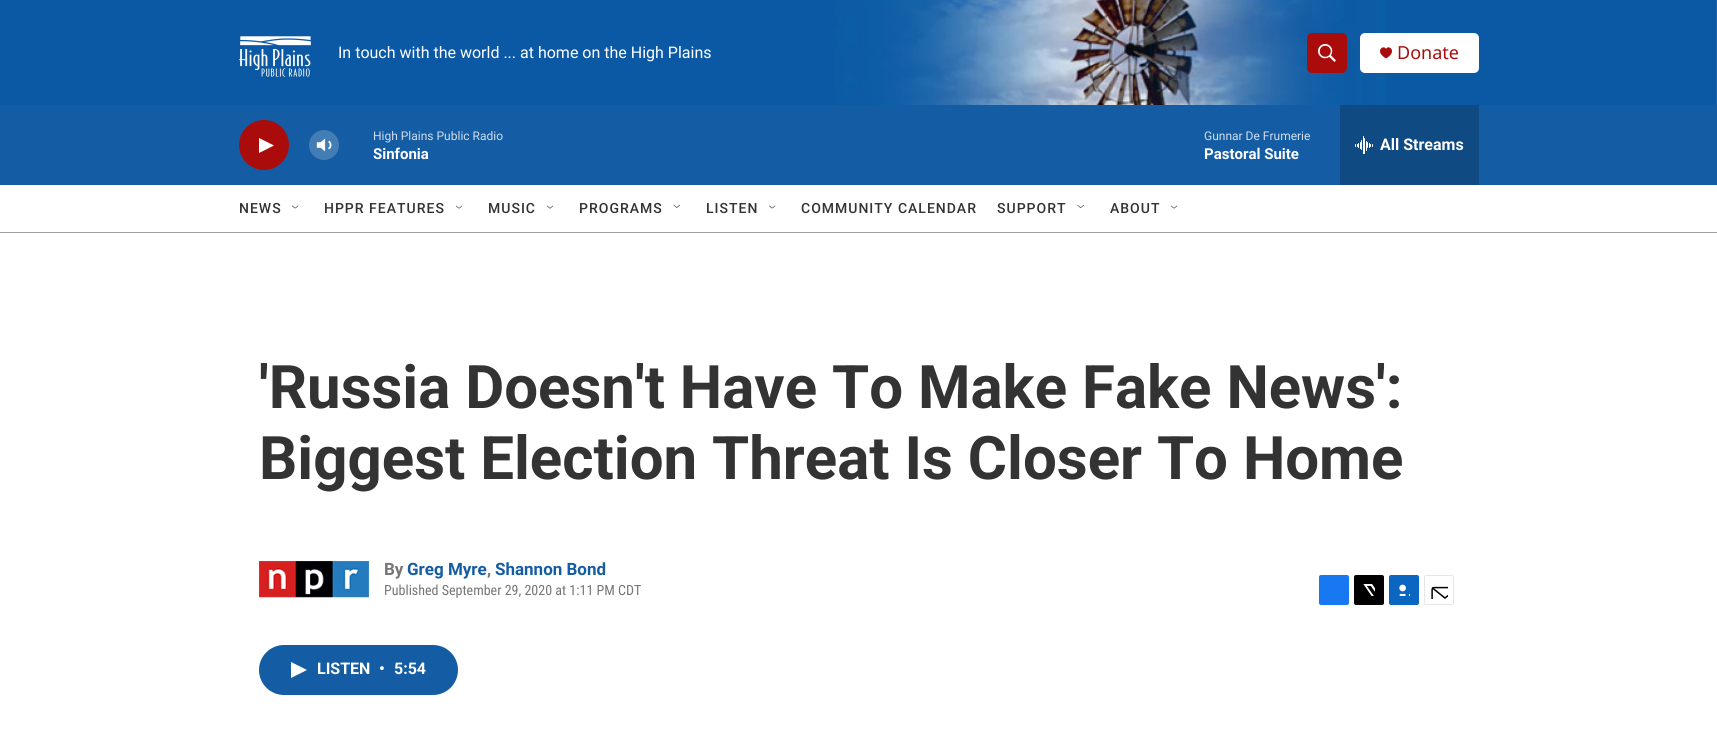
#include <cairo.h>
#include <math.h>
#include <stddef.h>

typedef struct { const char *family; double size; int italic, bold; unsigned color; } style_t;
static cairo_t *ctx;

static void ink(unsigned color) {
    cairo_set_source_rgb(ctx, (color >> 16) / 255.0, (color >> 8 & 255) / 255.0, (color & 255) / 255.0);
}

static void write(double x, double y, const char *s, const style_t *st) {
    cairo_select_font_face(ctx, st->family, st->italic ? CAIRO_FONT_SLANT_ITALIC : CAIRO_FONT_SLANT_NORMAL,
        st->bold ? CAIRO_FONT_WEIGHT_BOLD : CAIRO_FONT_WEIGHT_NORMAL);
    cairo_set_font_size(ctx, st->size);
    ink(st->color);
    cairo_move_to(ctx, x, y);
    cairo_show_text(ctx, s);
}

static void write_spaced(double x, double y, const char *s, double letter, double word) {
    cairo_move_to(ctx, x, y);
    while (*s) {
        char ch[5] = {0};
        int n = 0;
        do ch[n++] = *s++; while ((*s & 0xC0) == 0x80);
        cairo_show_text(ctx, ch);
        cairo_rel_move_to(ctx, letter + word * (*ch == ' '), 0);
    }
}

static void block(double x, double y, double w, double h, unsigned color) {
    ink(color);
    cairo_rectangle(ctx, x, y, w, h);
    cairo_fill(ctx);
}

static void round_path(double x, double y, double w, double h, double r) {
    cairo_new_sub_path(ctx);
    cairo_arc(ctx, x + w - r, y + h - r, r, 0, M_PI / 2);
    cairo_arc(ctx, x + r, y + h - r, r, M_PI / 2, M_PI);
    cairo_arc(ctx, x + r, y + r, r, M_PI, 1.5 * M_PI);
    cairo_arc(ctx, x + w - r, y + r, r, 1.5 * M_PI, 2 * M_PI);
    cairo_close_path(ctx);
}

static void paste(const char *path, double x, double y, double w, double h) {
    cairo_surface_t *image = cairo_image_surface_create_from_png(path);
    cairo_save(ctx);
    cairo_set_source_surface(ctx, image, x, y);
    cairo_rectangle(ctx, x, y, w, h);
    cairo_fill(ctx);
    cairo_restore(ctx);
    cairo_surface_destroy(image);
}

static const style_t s1 = {"Roboto", 16, 0, 0, 0xffffff};
static const style_t s2 = {"Noto Sans", 18, 0, 0, 0xaa0c0c};
static const style_t s3 = {"Roboto", 12, 0, 0, 0xd0deed};
static const style_t s4 = {"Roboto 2", 15, 0, 1, 0xffffff};
static const style_t s5 = {"Roboto 2", 16, 0, 1, 0xffffff};
static const style_t s6 = {"Roboto", 60, 0, 1, 0x333333};
static const style_t s7 = {"Roboto", 17, 0, 1, 0x767676};
static const style_t s8 = {"Roboto", 17, 0, 1, 0x145ca3};
static const style_t s9 = {"Roboto Condensed", 14, 0, 0, 0x767676};

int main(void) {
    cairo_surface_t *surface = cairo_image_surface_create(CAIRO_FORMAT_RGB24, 1717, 733);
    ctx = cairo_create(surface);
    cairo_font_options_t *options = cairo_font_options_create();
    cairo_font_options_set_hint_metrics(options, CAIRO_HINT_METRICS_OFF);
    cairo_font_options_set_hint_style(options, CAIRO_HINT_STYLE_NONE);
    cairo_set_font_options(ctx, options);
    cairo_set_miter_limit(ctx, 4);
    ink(0xffffff);
    cairo_paint(ctx);
    block(0, 232, 1717, 1, 0xa0a0a0);
    paste("pic1.png", 0, 0, 1717, 105);
    paste("pic2.png", 239, 32, 72, 45);
    write(338, 58, "In touch with the world ... at home on the High Plains", &s1);
    ink(0xaa0c0c);
    round_path(1307, 33, 40, 40, 5);
    cairo_fill(ctx);
    paste("pic3.png", 1318, 44, 18, 18);
    ink(0xffffff);
    round_path(1360, 33, 119, 40, 5);
    cairo_fill(ctx);
    ink(0xaa0c0c);
    cairo_new_path(ctx);
    cairo_move_to(ctx, 1386, 49);
    cairo_curve_to(ctx, 1384, 44, 1373.5, 51, 1386, 58.5);
    cairo_curve_to(ctx, 1398.5, 51, 1388, 44, 1386, 49);
    cairo_close_path(ctx);
    cairo_fill(ctx);
    write(1397, 59, "Donate", &s2);
    block(0, 105, 1717, 80, 0x145ca3);
    ink(0xaa0c0c);
    cairo_new_path(ctx);
    cairo_arc(ctx, 264, 145, 25, 0, 2 * M_PI);
    cairo_fill(ctx);
    ink(0xffffff);
    cairo_new_path(ctx);
    cairo_move_to(ctx, 259, 138);
    cairo_line_to(ctx, 274, 145.5);
    cairo_line_to(ctx, 259, 153);
    cairo_close_path(ctx);
    cairo_fill(ctx);
    paste("pic4.png", 316, 138, 16, 14);
    cairo_set_source_rgba(ctx, 1, 1, 1, 0.2);
    cairo_arc(ctx, 324, 145, 15, 0, 2 * M_PI);
    cairo_fill(ctx);
    write(373, 140, "High Plains Public Radio", &s3);
    write(373, 159, "Sinfonia", &s4);
    write(1204, 140, "Gunnar De Frumerie", &s3);
    write(1204, 159, "Pastoral Suite", &s4);
    block(1340, 105, 139, 80, 0x104a82);
    paste("pic5.png", 1355, 136, 18, 18);
    write(1380, 150, "All Streams", &s5);
    cairo_select_font_face(ctx, "Roboto Medium", CAIRO_FONT_SLANT_NORMAL, CAIRO_FONT_WEIGHT_NORMAL);
    cairo_set_font_size(ctx, 14);
    ink(0x333333);
    write_spaced(239, 213, "NEWS", 1, 0);
    paste("pic6.png", 292, 205, 7, 4);
    write_spaced(324, 213, "HPPR FEATURES", 1, 0);
    paste("pic7.png", 455, 205, 8, 4);
    write_spaced(488, 213, "MUSIC", 1, 0);
    paste("pic8.png", 546, 205, 8, 4);
    write_spaced(579, 213, "PROGRAMS", 1, 0);
    paste("pic9.png", 673, 204, 7, 4);
    write_spaced(706, 213, "LISTEN", 1, 0);
    paste("pic6.png", 769, 205, 7, 4);
    write_spaced(801, 213, "COMMUNITY CALENDAR", 1, 0);
    write_spaced(997, 213, "SUPPORT", 1, 0);
    paste("pic10.png", 1077, 205, 7, 3);
    write_spaced(1110, 213, "ABOUT", 1, 0);
    paste("pic11.png", 1170, 205, 8, 4);
    write(259, 408, "'Russia Doesn't Have To Make Fake News':", &s6);
    write(259, 479, "Biggest Election Threat Is Closer To Home", &s6);
    paste("pic12.png", 259, 561, 110, 37);
    write(384, 575, "By", &s7);
    write(407, 575, "Greg Myre", &s8);
    write(487, 575, ",", &s7);
    write(495, 575, "Shannon Bond", &s8);
    write(384, 595, "Published September 29, 2020 at 1:11 PM CDT", &s9);
    ink(0x1778f2);
    round_path(1319, 575, 30, 30, 2);
    cairo_fill(ctx);
    ink(0x000000);
    round_path(1354, 575, 30, 30, 2);
    cairo_fill(ctx);
    paste("pic13.png", 1363, 584, 12, 12);
    ink(0x0a66c1);
    round_path(1389, 575, 30, 30, 2);
    cairo_fill(ctx);
    paste("pic14.png", 1399, 584, 11, 12);
    round_path(1424.5, 575.5, 29, 29, 1.5);
    ink(0xe6e6e6);
    cairo_set_line_width(ctx, 1);
    cairo_stroke(ctx);
    paste("pic15.png", 1431, 586, 17, 13);
    ink(0x145ca3);
    round_path(259, 645, 199, 50, 25);
    cairo_fill(ctx);
    ink(0xffffff);
    cairo_new_path(ctx);
    cairo_move_to(ctx, 291, 662);
    cairo_line_to(ctx, 307, 670);
    cairo_line_to(ctx, 291, 678);
    cairo_close_path(ctx);
    cairo_fill(ctx);
    write(317, 674, "LISTEN", &s5);
    write(379, 674, "•", &s5);
    write(394, 674, "5:54", &s5);
    cairo_surface_write_to_png(surface, "screenshot.png");
    cairo_font_options_destroy(options);
    cairo_destroy(ctx);
    cairo_surface_destroy(surface);
    return 0;
}
